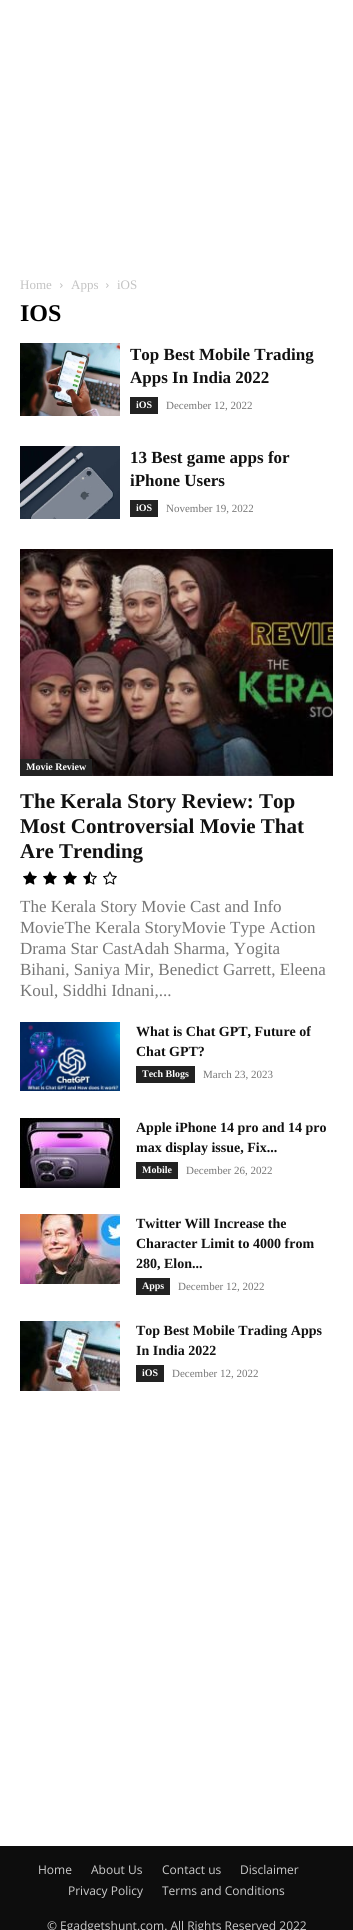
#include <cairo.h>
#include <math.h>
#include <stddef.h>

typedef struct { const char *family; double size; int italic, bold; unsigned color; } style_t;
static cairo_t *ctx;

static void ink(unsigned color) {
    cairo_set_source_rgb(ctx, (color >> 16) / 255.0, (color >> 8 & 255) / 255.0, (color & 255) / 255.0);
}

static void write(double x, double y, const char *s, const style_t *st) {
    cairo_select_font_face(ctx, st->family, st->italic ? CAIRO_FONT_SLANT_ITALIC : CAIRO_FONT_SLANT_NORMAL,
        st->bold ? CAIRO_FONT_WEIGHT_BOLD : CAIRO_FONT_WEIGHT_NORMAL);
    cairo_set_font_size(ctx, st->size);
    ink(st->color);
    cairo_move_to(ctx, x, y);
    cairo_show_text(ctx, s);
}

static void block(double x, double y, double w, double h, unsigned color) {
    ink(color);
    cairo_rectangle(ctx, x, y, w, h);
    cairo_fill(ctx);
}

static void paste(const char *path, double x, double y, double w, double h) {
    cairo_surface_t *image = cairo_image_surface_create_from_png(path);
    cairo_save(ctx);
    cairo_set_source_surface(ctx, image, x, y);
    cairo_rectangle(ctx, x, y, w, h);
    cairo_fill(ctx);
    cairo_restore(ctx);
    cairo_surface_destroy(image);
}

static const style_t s1 = {"Liberation Serif", 13, 0, 0, 0xc3c3c3};
static const style_t s2 = {"Liberation Serif", 24, 0, 1, 0x000000};
static const style_t s3 = {"Liberation Serif", 17, 0, 1, 0x111111};
static const style_t s4 = {"Liberation Serif", 10, 0, 1, 0xffffff};
static const style_t s5 = {"Liberation Serif", 11, 0, 0, 0x767676};
static const style_t s6 = {"Liberation Serif", 21, 0, 1, 0x111111};
static const style_t s7 = {"Liberation Serif", 17, 0, 0, 0x767676};
static const style_t s8 = {"Liberation Serif", 14, 0, 1, 0x111111};
static const style_t s9 = {"Open Sans", 12, 0, 0, 0xcccccc};

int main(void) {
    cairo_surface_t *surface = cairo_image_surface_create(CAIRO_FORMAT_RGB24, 353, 1930);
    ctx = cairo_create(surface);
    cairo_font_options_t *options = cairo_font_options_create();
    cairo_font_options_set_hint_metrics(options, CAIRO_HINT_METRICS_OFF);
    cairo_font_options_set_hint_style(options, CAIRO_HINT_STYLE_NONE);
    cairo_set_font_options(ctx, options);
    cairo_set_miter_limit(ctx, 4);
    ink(0xffffff);
    cairo_paint(ctx);
    write(20, 289, "Home", &s1);
    paste("pic1.png", 60, 283, 3, 5);
    write(71, 289, "Apps", &s1);
    paste("pic1.png", 106, 283, 3, 5);
    write(117, 289, "iOS", &s1);
    write(20, 321, "IOS", &s2);
    paste("pic2.png", 20, 343, 100, 73);
    write(130, 360, "Top Best Mobile Trading", &s3);
    write(130, 383, "Apps In India 2022", &s3);
    block(130, 397, 28, 17, 0x222222);
    write(136, 408, "iOS", &s4);
    write(166, 409, "December 12, 2022", &s5);
    paste("pic3.png", 20, 446, 100, 73);
    write(130, 463, "13 Best game apps for", &s3);
    write(130, 486, "iPhone Users", &s3);
    block(130, 500, 28, 17, 0x222222);
    write(136, 511, "iOS", &s4);
    write(166, 512, "November 19, 2022", &s5);
    paste("pic4.png", 20, 549, 313, 227);
    block(20, 759, 72, 17, 0x222222);
    write(26, 770, "Movie Review", &s4);
    write(20, 808, "The Kerala Story Review: Top", &s6);
    write(20, 833, "Most Controversial Movie That", &s6);
    write(20, 858, "Are Trending", &s6);
    paste("pic5.png", 23, 871, 14, 14);
    paste("pic5.png", 43, 871, 14, 14);
    paste("pic5.png", 63, 871, 14, 14);
    paste("pic6.png", 83, 871, 14, 14);
    paste("pic7.png", 103, 871, 14, 14);
    write(20, 912, "The Kerala Story Movie Cast and Info", &s7);
    write(20, 933, "MovieThe Kerala StoryMovie Type Action", &s7);
    write(20, 954, "Drama Star CastAdah Sharma, Yogita", &s7);
    write(20, 975, "Bihani, Saniya Mir, Benedict Garrett, Eleena", &s7);
    write(20, 996, "Koul, Siddhi Idnani,...", &s7);
    paste("pic8.png", 20, 1022, 100, 69);
    write(136, 1036, "What is Chat GPT, Future of", &s8);
    write(136, 1056, "Chat GPT?", &s8);
    block(136, 1066, 59, 17, 0x222222);
    write(142, 1077, "Tech Blogs", &s4);
    write(203, 1078, "March 23, 2023", &s5);
    paste("pic9.png", 20, 1118, 100, 70);
    write(136, 1132, "Apple iPhone 14 pro and 14 pro", &s8);
    write(136, 1152, "max display issue, Fix...", &s8);
    block(136, 1162, 42, 17, 0x222222);
    write(142, 1173, "Mobile", &s4);
    write(186, 1174, "December 26, 2022", &s5);
    paste("pic10.png", 20, 1214, 100, 70);
    write(136, 1228, "Twitter Will Increase the", &s8);
    write(136, 1248, "Character Limit to 4000 from", &s8);
    write(136, 1268, "280, Elon...", &s8);
    block(136, 1278, 34, 17, 0x222222);
    write(142, 1289, "Apps", &s4);
    write(178, 1290, "December 12, 2022", &s5);
    paste("pic11.png", 20, 1321, 100, 70);
    write(136, 1335, "Top Best Mobile Trading Apps", &s8);
    write(136, 1355, "In India 2022", &s8);
    block(136, 1365, 28, 17, 0x222222);
    write(142, 1376, "iOS", &s4);
    write(172, 1377, "December 12, 2022", &s5);
    block(0, 1846, 353, 84, 0x0d0d0d);
    write(38, 1874, "Home", &s9);
    write(91, 1874, "About Us", &s9);
    write(162, 1874, "Contact us", &s9);
    write(240, 1874, "Disclaimer", &s9);
    write(68, 1895, "Privacy Policy", &s9);
    write(162, 1895, "Terms and Conditions", &s9);
    write(47, 1930, "© Egadgetshunt.com. All Rights Reserved 2022", &s9);
    cairo_surface_write_to_png(surface, "screenshot.png");
    cairo_font_options_destroy(options);
    cairo_destroy(ctx);
    cairo_surface_destroy(surface);
    return 0;
}
